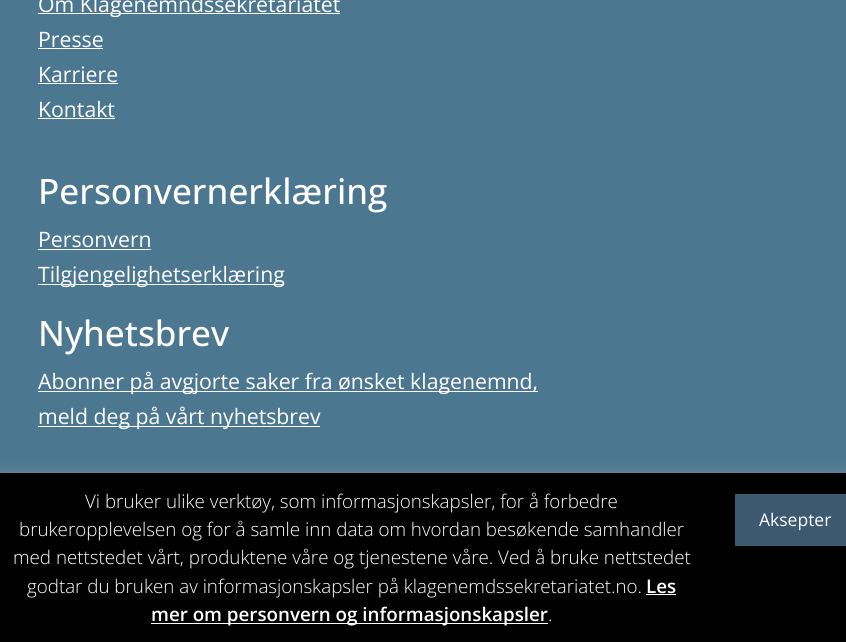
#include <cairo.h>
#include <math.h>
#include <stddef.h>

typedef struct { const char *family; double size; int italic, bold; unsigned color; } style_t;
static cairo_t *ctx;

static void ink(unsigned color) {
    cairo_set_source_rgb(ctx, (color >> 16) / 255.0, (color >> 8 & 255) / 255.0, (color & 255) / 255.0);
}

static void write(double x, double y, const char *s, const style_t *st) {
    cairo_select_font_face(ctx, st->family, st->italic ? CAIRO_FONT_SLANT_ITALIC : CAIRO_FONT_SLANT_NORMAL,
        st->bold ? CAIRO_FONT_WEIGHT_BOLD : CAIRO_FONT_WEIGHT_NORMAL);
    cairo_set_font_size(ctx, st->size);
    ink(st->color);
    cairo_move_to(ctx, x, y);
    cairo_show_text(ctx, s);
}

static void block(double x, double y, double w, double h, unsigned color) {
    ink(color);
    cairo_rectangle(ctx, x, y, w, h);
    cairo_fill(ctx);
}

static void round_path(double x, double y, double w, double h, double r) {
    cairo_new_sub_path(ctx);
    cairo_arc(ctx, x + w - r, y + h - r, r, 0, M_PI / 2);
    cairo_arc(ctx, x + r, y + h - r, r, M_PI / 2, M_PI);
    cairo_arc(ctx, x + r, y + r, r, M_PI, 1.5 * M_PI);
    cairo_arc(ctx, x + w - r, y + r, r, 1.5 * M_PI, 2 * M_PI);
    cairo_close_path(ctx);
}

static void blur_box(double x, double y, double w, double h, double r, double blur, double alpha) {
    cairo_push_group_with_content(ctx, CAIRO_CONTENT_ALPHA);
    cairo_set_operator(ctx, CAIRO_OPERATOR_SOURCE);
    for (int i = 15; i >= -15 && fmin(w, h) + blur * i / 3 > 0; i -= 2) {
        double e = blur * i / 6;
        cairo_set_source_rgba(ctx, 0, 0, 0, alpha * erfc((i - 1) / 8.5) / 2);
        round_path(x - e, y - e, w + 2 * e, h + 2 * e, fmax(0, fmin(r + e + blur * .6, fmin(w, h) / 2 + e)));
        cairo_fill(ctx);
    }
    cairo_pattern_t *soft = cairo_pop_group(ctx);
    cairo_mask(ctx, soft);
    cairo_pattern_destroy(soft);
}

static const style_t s1 = {"Open Sans", 21.25, 0, 0, 0xffffff};
static const style_t s2 = {"Open Sans Medium", 35, 0, 0, 0xffffff};
static const style_t s3 = {"Open Sans Light", 18.75, 0, 0, 0xffffff};
static const style_t s4 = {"Open Sans SemiBold", 18.75, 0, 0, 0xffffff};
static const style_t s5 = {"Open Sans", 17.5, 0, 0, 0xffffff};

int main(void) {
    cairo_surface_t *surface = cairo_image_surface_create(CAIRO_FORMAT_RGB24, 846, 642);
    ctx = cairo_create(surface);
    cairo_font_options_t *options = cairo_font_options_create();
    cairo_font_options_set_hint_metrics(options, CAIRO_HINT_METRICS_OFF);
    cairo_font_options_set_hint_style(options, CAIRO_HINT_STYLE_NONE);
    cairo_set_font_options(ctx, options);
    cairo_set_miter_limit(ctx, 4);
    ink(0x4c7791);
    cairo_paint(ctx);
    block(38, 13, 302, 1, 0xffffff);
    write(38, 12, "Om Klagenemndssekretariatet", &s1);
    write(38, 47, "Presse", &s1);
    block(38, 48, 65, 1, 0xffffff);
    write(38, 82, "Karriere", &s1);
    block(38, 83, 80, 1, 0xffffff);
    write(38, 117, "Kontakt", &s1);
    block(38, 118, 77, 1, 0xffffff);
    write(38, 204, "Personvernerklæring", &s2);
    write(38, 247, "Personvern", &s1);
    block(38, 249, 113, 1, 0xffffff);
    block(38, 284, 246, 1, 0xffffff);
    write(38, 282, "Tilgjengelighetserklæring", &s1);
    write(38, 346, "Nyhetsbrev", &s2);
    block(38, 391, 500, 1, 0xffffff);
    write(38, 389, "Abonner på avgjorte saker fra ønsket klagenemnd,", &s1);
    block(38, 426, 282, 1, 0xffffff);
    write(38, 424, "meld deg på vårt nyhetsbrev", &s1);
    ink(0xacabab);
    blur_box(0, 471, 846, 170, 0, 6, 0.3);
    block(0, 473, 846, 169, 0x000000);
    write(85, 508, "Vi bruker ulike verktøy, som informasjonskapsler, for å forbedre", &s3);
    write(19, 536, "brukeropplevelsen og for å samle inn data om hvordan besøkende samhandler", &s3);
    write(13, 564, "med nettstedet vårt, produktene våre og tjenestene våre. Ved å bruke nettstedet", &s3);
    write(27, 593, "godtar du bruken av informasjonskapsler på klagenemdssekretariatet.no.", &s3);
    write(646, 593, "Les", &s4);
    block(646, 594, 30, 1, 0xffffff);
    block(151, 623, 397, 1, 0xffffff);
    write(151, 621, "mer om personvern og informasjonskapsler", &s4);
    write(548, 621, ".", &s3);
    block(735, 494, 111, 52, 0x3d5871);
    write(759, 526, "Aksepter", &s5);
    cairo_surface_write_to_png(surface, "screenshot.png");
    cairo_font_options_destroy(options);
    cairo_destroy(ctx);
    cairo_surface_destroy(surface);
    return 0;
}
